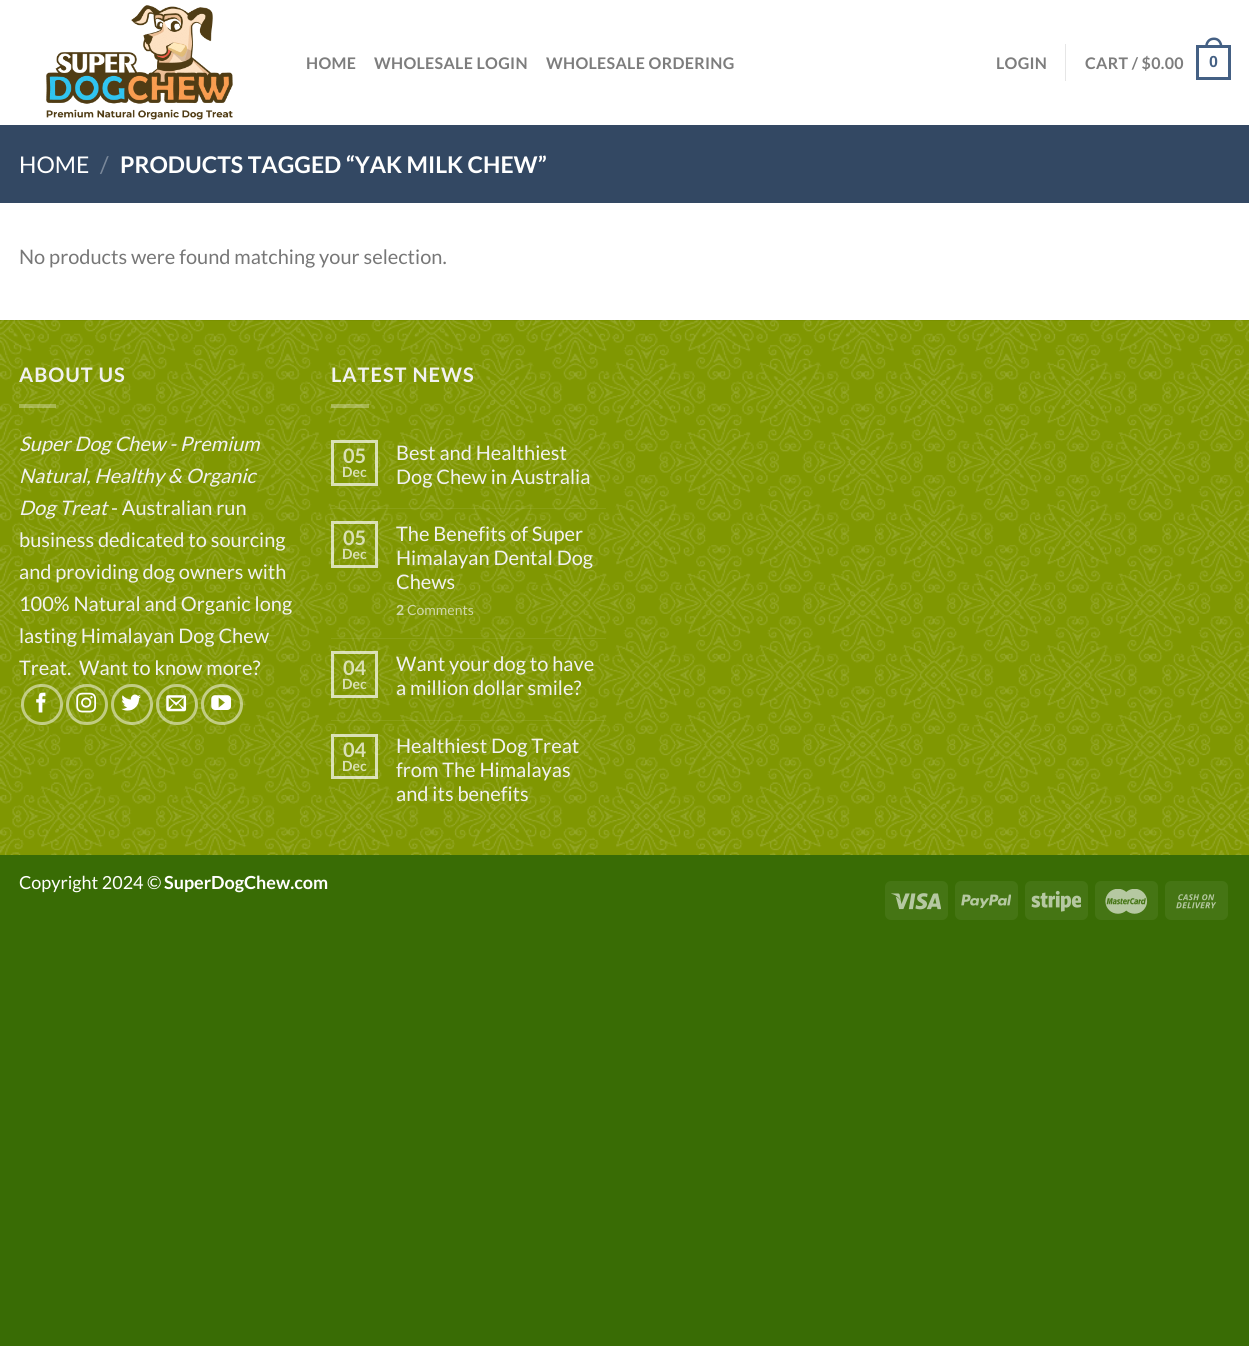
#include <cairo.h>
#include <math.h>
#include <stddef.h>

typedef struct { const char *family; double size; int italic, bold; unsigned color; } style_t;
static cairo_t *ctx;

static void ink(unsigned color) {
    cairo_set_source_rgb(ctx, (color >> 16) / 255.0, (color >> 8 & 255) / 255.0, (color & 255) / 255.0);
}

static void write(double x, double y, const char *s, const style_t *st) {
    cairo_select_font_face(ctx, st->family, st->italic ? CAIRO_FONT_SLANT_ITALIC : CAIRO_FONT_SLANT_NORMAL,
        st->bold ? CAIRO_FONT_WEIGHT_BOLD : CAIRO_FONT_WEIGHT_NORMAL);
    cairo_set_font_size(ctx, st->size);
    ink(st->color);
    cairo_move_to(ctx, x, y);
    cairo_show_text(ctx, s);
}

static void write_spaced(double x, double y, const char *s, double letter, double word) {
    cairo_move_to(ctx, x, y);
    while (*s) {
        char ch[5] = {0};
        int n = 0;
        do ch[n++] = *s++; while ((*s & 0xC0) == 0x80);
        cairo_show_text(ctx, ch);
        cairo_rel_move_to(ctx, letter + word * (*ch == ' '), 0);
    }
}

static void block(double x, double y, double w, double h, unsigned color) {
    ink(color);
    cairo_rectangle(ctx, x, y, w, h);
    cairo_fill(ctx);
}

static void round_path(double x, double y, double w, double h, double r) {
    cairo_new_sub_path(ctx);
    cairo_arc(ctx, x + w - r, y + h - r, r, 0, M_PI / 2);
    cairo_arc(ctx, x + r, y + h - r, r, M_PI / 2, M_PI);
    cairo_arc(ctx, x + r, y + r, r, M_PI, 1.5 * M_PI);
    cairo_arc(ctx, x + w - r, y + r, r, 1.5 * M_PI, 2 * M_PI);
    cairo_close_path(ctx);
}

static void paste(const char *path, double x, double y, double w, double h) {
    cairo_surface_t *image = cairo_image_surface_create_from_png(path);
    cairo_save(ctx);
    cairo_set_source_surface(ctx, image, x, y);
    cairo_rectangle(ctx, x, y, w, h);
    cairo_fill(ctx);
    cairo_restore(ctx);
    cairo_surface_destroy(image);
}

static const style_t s1 = {"Lato", 23, 0, 0, 0xffffff};
static const style_t s2 = {"Lato", 23, 0, 0, 0x7a889a};
static const style_t s3 = {"Lato", 23, 0, 1, 0xffffff};
static const style_t s4 = {"Lato", 20, 0, 0, 0x777777};
static const style_t s5 = {"Lato", 20, 1, 0, 0xf1f1f1};
static const style_t s6 = {"Lato", 20, 0, 0, 0xf1f1f1};
static const style_t s7 = {"Lato", 20, 0, 1, 0xdae0b5};
static const style_t s8 = {"Lato", 14, 0, 1, 0xdae0b5};
static const style_t s9 = {"Lato", 14, 0, 1, 0xd0d7ac};
static const style_t s10 = {"Lato", 14, 0, 0, 0xd0d7ac};
static const style_t s11 = {"Lato", 18, 0, 0, 0xffffff};
static const style_t s12 = {"Lato", 18, 0, 1, 0xffffff};

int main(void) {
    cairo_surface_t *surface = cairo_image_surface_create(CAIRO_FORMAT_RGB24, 1249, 1346);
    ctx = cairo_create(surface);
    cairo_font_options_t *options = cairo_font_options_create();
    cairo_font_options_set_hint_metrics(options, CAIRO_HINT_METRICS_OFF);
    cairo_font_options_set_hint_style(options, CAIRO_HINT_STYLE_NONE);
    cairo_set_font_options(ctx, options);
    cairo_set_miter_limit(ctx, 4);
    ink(0x396c05);
    cairo_paint(ctx);
    block(0, 0, 1249, 320, 0xffffff);
    paste("pic1.png", 46, 5, 187, 115);
    cairo_select_font_face(ctx, "Lato", CAIRO_FONT_SLANT_NORMAL, CAIRO_FONT_WEIGHT_BOLD);
    cairo_set_font_size(ctx, 16);
    ink(0x7d7d7d);
    write_spaced(306, 69, "HOME", 0.3, 0);
    write_spaced(374, 69, "WHOLESALE LOGIN", 0.3, 0);
    write_spaced(546, 69, "WHOLESALE ORDERING", 0.3, 0);
    write_spaced(996, 69, "LOGIN", 0.3, 0);
    block(1065, 44, 1, 37, 0xe6e6e6);
    ink(0x7d7d7d);
    write_spaced(1085, 69, "CART / $0.00", 0.3, 0);
    cairo_rectangle(ctx, 1197.5, 46.5, 32, 32);
    ink(0x446084);
    cairo_set_line_width(ctx, 3);
    cairo_stroke(ctx);
    cairo_set_fill_rule(ctx, CAIRO_FILL_RULE_EVEN_ODD);
    cairo_new_path(ctx);
    cairo_move_to(ctx, 1214, 37.5);
    cairo_curve_to(ctx, 1219.5, 37.5, 1222.5, 42, 1222.5, 47.5);
    cairo_line_to(ctx, 1205, 47.5);
    cairo_curve_to(ctx, 1205, 42, 1208, 37.5, 1214, 37.5);
    cairo_close_path(ctx);
    cairo_move_to(ctx, 1214, 40);
    cairo_curve_to(ctx, 1218, 40, 1220, 43.5, 1220, 47.5);
    cairo_line_to(ctx, 1207.5, 47.5);
    cairo_curve_to(ctx, 1207.5, 43.5, 1209.5, 40, 1214, 40);
    cairo_close_path(ctx);
    cairo_fill(ctx);
    cairo_select_font_face(ctx, "Liberation Sans", CAIRO_FONT_SLANT_NORMAL, CAIRO_FONT_WEIGHT_BOLD);
    write_spaced(1209, 67, "0", 0.3, 0);
    block(0, 125, 1249, 78, 0x334863);
    write(19, 173, "HOME", &s1);
    write(100, 173, "/", &s2);
    write(120, 173, "PRODUCTS TAGGED “YAK MILK CHEW”", &s3);
    write(19, 264, "No products were found matching your selection.", &s4);
    block(0, 320, 1249, 535, 0x7f9600);
    paste("pic2.png", 0, 320, 1249, 535);
    cairo_set_source_rgba(ctx, 0, 0, 0, 0.05);
    cairo_rectangle(ctx, 0, 320, 1249, 1);
    cairo_fill(ctx);
    cairo_select_font_face(ctx, "Lato", CAIRO_FONT_SLANT_NORMAL, CAIRO_FONT_WEIGHT_BOLD);
    ink(0xf1f1f1);
    write_spaced(19, 382, "ABOUT US", 1, 0);
    cairo_set_source_rgba(ctx, 1, 1, 1, 0.3);
    cairo_rectangle(ctx, 19, 404, 37, 4);
    cairo_fill(ctx);
    write(19, 451, "Super Dog Chew - Premium", &s5);
    write(19, 483, "Natural, Healthy & Organic", &s5);
    write(19, 515, "Dog Treat", &s5);
    write(111, 515, "- Australian run", &s6);
    write(19, 547, "business dedicated to sourcing", &s6);
    write(19, 579, "and providing dog owners with", &s6);
    write(19, 611, "100% Natural and Organic long", &s6);
    write(19, 643, "lasting Himalayan Dog Chew", &s6);
    write(19, 675, "Treat.", &s6);
    write(79, 675, "Want to know more?", &s6);
    round_path(22.5, 685.5, 39, 38, 19);
    cairo_set_source_rgba(ctx, 1, 1, 1, 0.5);
    cairo_stroke(ctx);
    paste("pic3.png", 36, 692, 10, 21);
    round_path(67.5, 685.5, 39, 38, 19);
    cairo_stroke(ctx);
    paste("pic4.png", 76, 692, 20, 21);
    round_path(112.5, 685.5, 39, 38, 19);
    cairo_stroke(ctx);
    paste("pic5.png", 121, 694, 20, 17);
    round_path(157.5, 685.5, 39, 38, 19);
    cairo_stroke(ctx);
    paste("pic6.png", 166, 695, 21, 17);
    round_path(202.5, 685.5, 39, 38, 19);
    cairo_stroke(ctx);
    paste("pic7.png", 211, 695, 21, 15);
    cairo_select_font_face(ctx, "Lato", CAIRO_FONT_SLANT_NORMAL, CAIRO_FONT_WEIGHT_BOLD);
    ink(0xf1f1f1);
    write_spaced(331, 382, "LATEST NEWS", 1, 0);
    cairo_set_source_rgba(ctx, 1, 1, 1, 0.3);
    cairo_rectangle(ctx, 331, 404, 38, 4);
    cairo_fill(ctx);
    cairo_rectangle(ctx, 332.5, 441.5, 44, 43);
    cairo_set_source_rgba(ctx, 1, 1, 1, 0.7);
    cairo_stroke(ctx);
    write(343, 463, "05", &s7);
    write(342, 477, "Dec", &s8);
    write(396, 460, "Best and Healthiest", &s6);
    write(396, 484, "Dog Chew in Australia", &s6);
    cairo_set_source_rgba(ctx, 1, 1, 1, 0.08);
    cairo_rectangle(ctx, 331, 508, 275, 1);
    cairo_fill(ctx);
    cairo_rectangle(ctx, 332.5, 522.5, 44, 44);
    cairo_set_source_rgba(ctx, 1, 1, 1, 0.7);
    cairo_stroke(ctx);
    write(343, 545, "05", &s7);
    write(342, 559, "Dec", &s8);
    write(396, 541, "The Benefits of Super", &s6);
    write(396, 565, "Himalayan Dental Dog", &s6);
    write(396, 589, "Chews", &s6);
    write(396, 615, "2", &s9);
    write(407, 615, "Comments", &s10);
    cairo_set_source_rgba(ctx, 1, 1, 1, 0.08);
    cairo_rectangle(ctx, 331, 638, 275, 1);
    cairo_fill(ctx);
    cairo_rectangle(ctx, 332.5, 652.5, 44, 44);
    cairo_set_source_rgba(ctx, 1, 1, 1, 0.7);
    cairo_stroke(ctx);
    write(343, 675, "04", &s7);
    write(342, 689, "Dec", &s8);
    write(396, 671, "Want your dog to have", &s6);
    write(396, 695, "a million dollar smile?", &s6);
    cairo_set_source_rgba(ctx, 1, 1, 1, 0.08);
    cairo_rectangle(ctx, 331, 720, 275, 1);
    cairo_fill(ctx);
    cairo_rectangle(ctx, 332.5, 735.5, 44, 42);
    cairo_set_source_rgba(ctx, 1, 1, 1, 0.7);
    cairo_stroke(ctx);
    write(343, 757, "04", &s7);
    write(342, 771, "Dec", &s8);
    write(396, 753, "Healthiest Dog Treat", &s6);
    write(396, 777, "from The Himalayas", &s6);
    write(396, 801, "and its benefits", &s6);
    write(19, 889, "Copyright 2024 ©", &s11);
    write(164, 889, "SuperDogChew.com", &s12);
    ink(0x457514);
    round_path(885, 881, 63, 39, 6);
    cairo_fill(ctx);
    paste("pic8.png", 891, 893, 50, 17);
    round_path(955, 881, 63, 39, 6);
    cairo_fill(ctx);
    paste("pic9.png", 961, 894, 50, 14);
    round_path(1025, 881, 63, 39, 6);
    cairo_fill(ctx);
    paste("pic10.png", 1031, 890, 50, 22);
    round_path(1095, 881, 63, 39, 6);
    cairo_fill(ctx);
    paste("pic11.png", 1105, 889, 43, 25);
    round_path(1165, 881, 63, 39, 6);
    cairo_fill(ctx);
    paste("pic12.png", 1176, 894, 41, 15);
    cairo_surface_write_to_png(surface, "screenshot.png");
    cairo_font_options_destroy(options);
    cairo_destroy(ctx);
    cairo_surface_destroy(surface);
    return 0;
}
